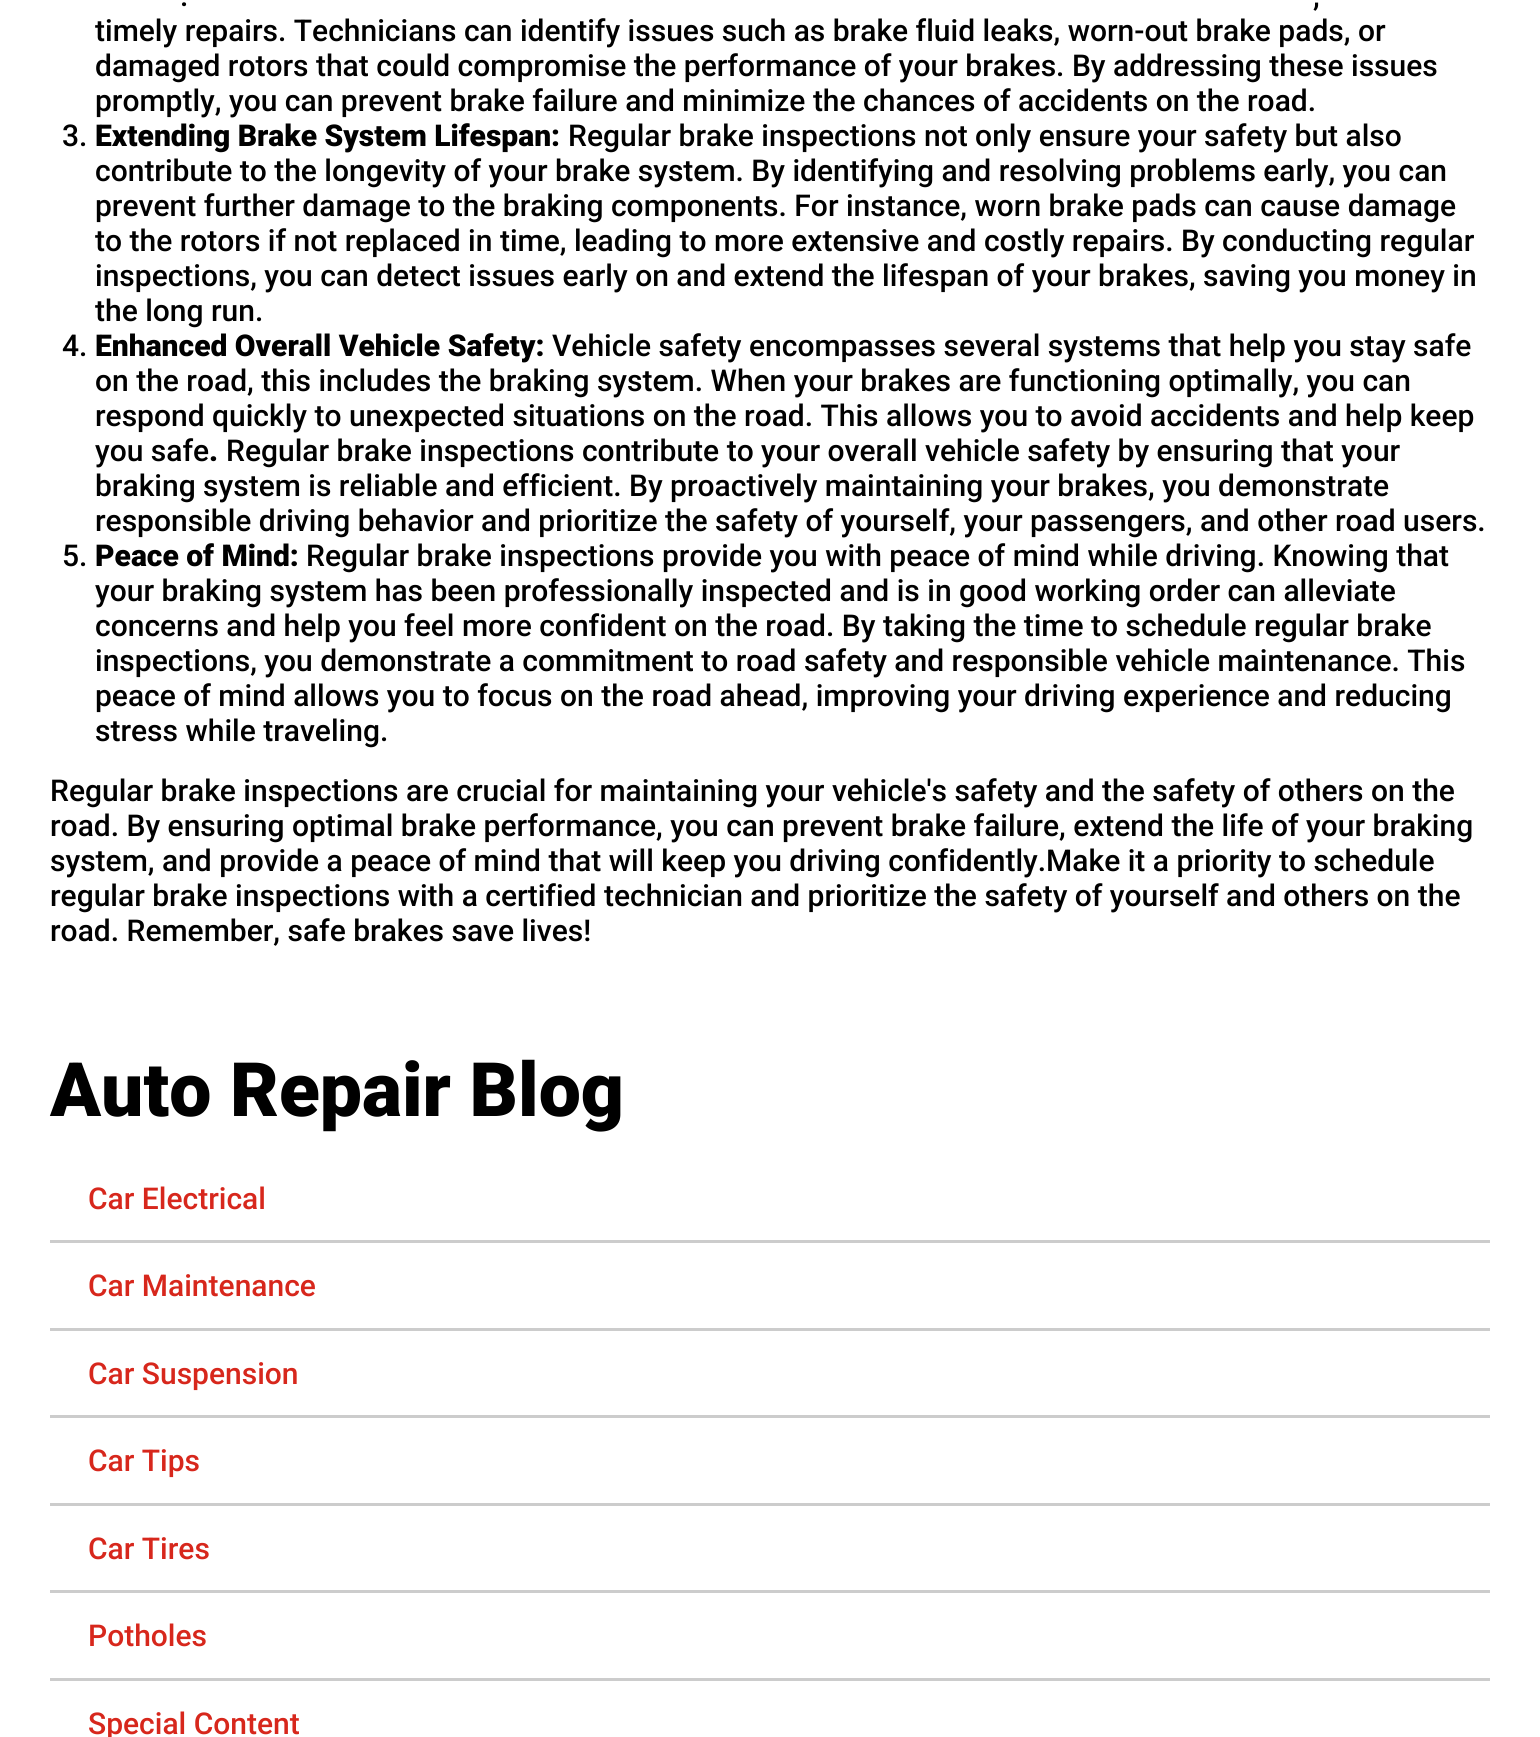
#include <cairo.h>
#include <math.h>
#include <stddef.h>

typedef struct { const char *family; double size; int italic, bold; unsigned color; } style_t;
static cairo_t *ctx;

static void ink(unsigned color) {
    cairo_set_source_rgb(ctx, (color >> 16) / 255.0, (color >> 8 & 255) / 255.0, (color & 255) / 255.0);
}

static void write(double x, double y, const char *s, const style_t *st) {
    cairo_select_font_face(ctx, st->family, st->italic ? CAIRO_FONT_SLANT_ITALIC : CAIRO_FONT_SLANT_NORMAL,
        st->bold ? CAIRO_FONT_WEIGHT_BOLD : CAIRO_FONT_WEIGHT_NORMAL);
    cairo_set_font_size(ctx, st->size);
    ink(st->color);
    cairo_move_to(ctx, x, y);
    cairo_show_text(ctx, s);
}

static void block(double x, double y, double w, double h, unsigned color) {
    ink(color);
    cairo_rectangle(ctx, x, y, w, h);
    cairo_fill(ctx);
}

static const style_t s1 = {"Roboto Medium", 30, 0, 0, 0x000000};
static const style_t s2 = {"Roboto Black", 30, 0, 0, 0x000000};
static const style_t s3 = {"Roboto Black", 75, 0, 0, 0x000000};
static const style_t s4 = {"Roboto Medium", 30, 0, 0, 0xd7271c};

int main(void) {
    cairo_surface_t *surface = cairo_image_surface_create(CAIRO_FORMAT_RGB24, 1540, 1737);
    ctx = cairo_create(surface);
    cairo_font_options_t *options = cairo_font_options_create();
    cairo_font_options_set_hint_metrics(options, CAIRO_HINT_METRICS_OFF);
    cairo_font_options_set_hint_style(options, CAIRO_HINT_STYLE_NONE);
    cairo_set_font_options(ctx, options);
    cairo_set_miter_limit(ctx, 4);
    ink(0xffffff);
    cairo_paint(ctx);
    write(180, 6, ".", &s1);
    write(1313, 6, ",", &s1);
    write(95, 41, "timely repairs. Technicians can identify issues such as brake fluid leaks, worn-out brake pads, or", &s1);
    write(95, 76, "damaged rotors that could compromise the performance of your brakes. By addressing these issues", &s1);
    write(95, 111, "promptly, you can prevent brake failure and minimize the chances of accidents on the road.", &s1);
    write(62, 146, "3.", &s1);
    write(95, 146, "Extending Brake System Lifespan:", &s2);
    write(568, 146, "Regular brake inspections not only ensure your safety but also", &s1);
    write(95, 181, "contribute to the longevity of your brake system. By identifying and resolving problems early, you can", &s1);
    write(95, 216, "prevent further damage to the braking components. For instance, worn brake pads can cause damage", &s1);
    write(95, 251, "to the rotors if not replaced in time, leading to more extensive and costly repairs. By conducting regular", &s1);
    write(95, 286, "inspections, you can detect issues early on and extend the lifespan of your brakes, saving you money in", &s1);
    write(95, 321, "the long run.", &s1);
    write(62, 356, "4.", &s1);
    write(95, 356, "Enhanced Overall Vehicle Safety:", &s2);
    write(552, 356, "Vehicle safety encompasses several systems that help you stay safe", &s1);
    write(95, 391, "on the road, this includes the braking system. When your brakes are functioning optimally, you can", &s1);
    write(95, 426, "respond quickly to unexpected situations on the road. This allows you to avoid accidents and help keep", &s1);
    write(95, 461, "you safe", &s1);
    write(209, 461, ".", &s2);
    write(226, 461, "Regular brake inspections contribute to your overall vehicle safety by ensuring that your", &s1);
    write(95, 496, "braking system is reliable and efficient. By proactively maintaining your brakes, you demonstrate", &s1);
    write(95, 531, "responsible driving behavior and prioritize the safety of yourself, your passengers, and other road users.", &s1);
    write(62, 566, "5.", &s1);
    write(95, 566, "Peace of Mind:", &s2);
    write(306, 566, "Regular brake inspections provide you with peace of mind while driving. Knowing that", &s1);
    write(95, 601, "your braking system has been professionally inspected and is in good working order can alleviate", &s1);
    write(95, 636, "concerns and help you feel more confident on the road. By taking the time to schedule regular brake", &s1);
    write(95, 671, "inspections, you demonstrate a commitment to road safety and responsible vehicle maintenance. This", &s1);
    write(95, 706, "peace of mind allows you to focus on the road ahead, improving your driving experience and reducing", &s1);
    write(95, 741, "stress while traveling.", &s1);
    write(50, 801, "Regular brake inspections are crucial for maintaining your vehicle's safety and the safety of others on the", &s1);
    write(50, 836, "road. By ensuring optimal brake performance, you can prevent brake failure, extend the life of your braking", &s1);
    write(50, 871, "system, and provide a peace of mind that will keep you driving confidently.Make it a priority to schedule", &s1);
    write(50, 906, "regular brake inspections with a certified technician and prioritize the safety of yourself and others on the", &s1);
    write(50, 941, "road. Remember, safe brakes save lives!", &s1);
    write(50, 1116, "Auto Repair Blog", &s3);
    block(50, 1240, 1440, 3, 0xcccccc);
    write(88, 1209, "Car Electrical", &s4);
    block(50, 1328, 1440, 3, 0xcccccc);
    write(88, 1296, "Car Maintenance", &s4);
    block(50, 1415, 1440, 3, 0xcccccc);
    write(88, 1384, "Car Suspension", &s4);
    block(50, 1503, 1440, 3, 0xcccccc);
    write(88, 1471, "Car Tips", &s4);
    block(50, 1590, 1440, 3, 0xcccccc);
    write(88, 1559, "Car Tires", &s4);
    block(50, 1678, 1440, 3, 0xcccccc);
    write(88, 1646, "Potholes", &s4);
    write(88, 1734, "Special Content", &s4);
    cairo_surface_write_to_png(surface, "screenshot.png");
    cairo_font_options_destroy(options);
    cairo_destroy(ctx);
    cairo_surface_destroy(surface);
    return 0;
}
